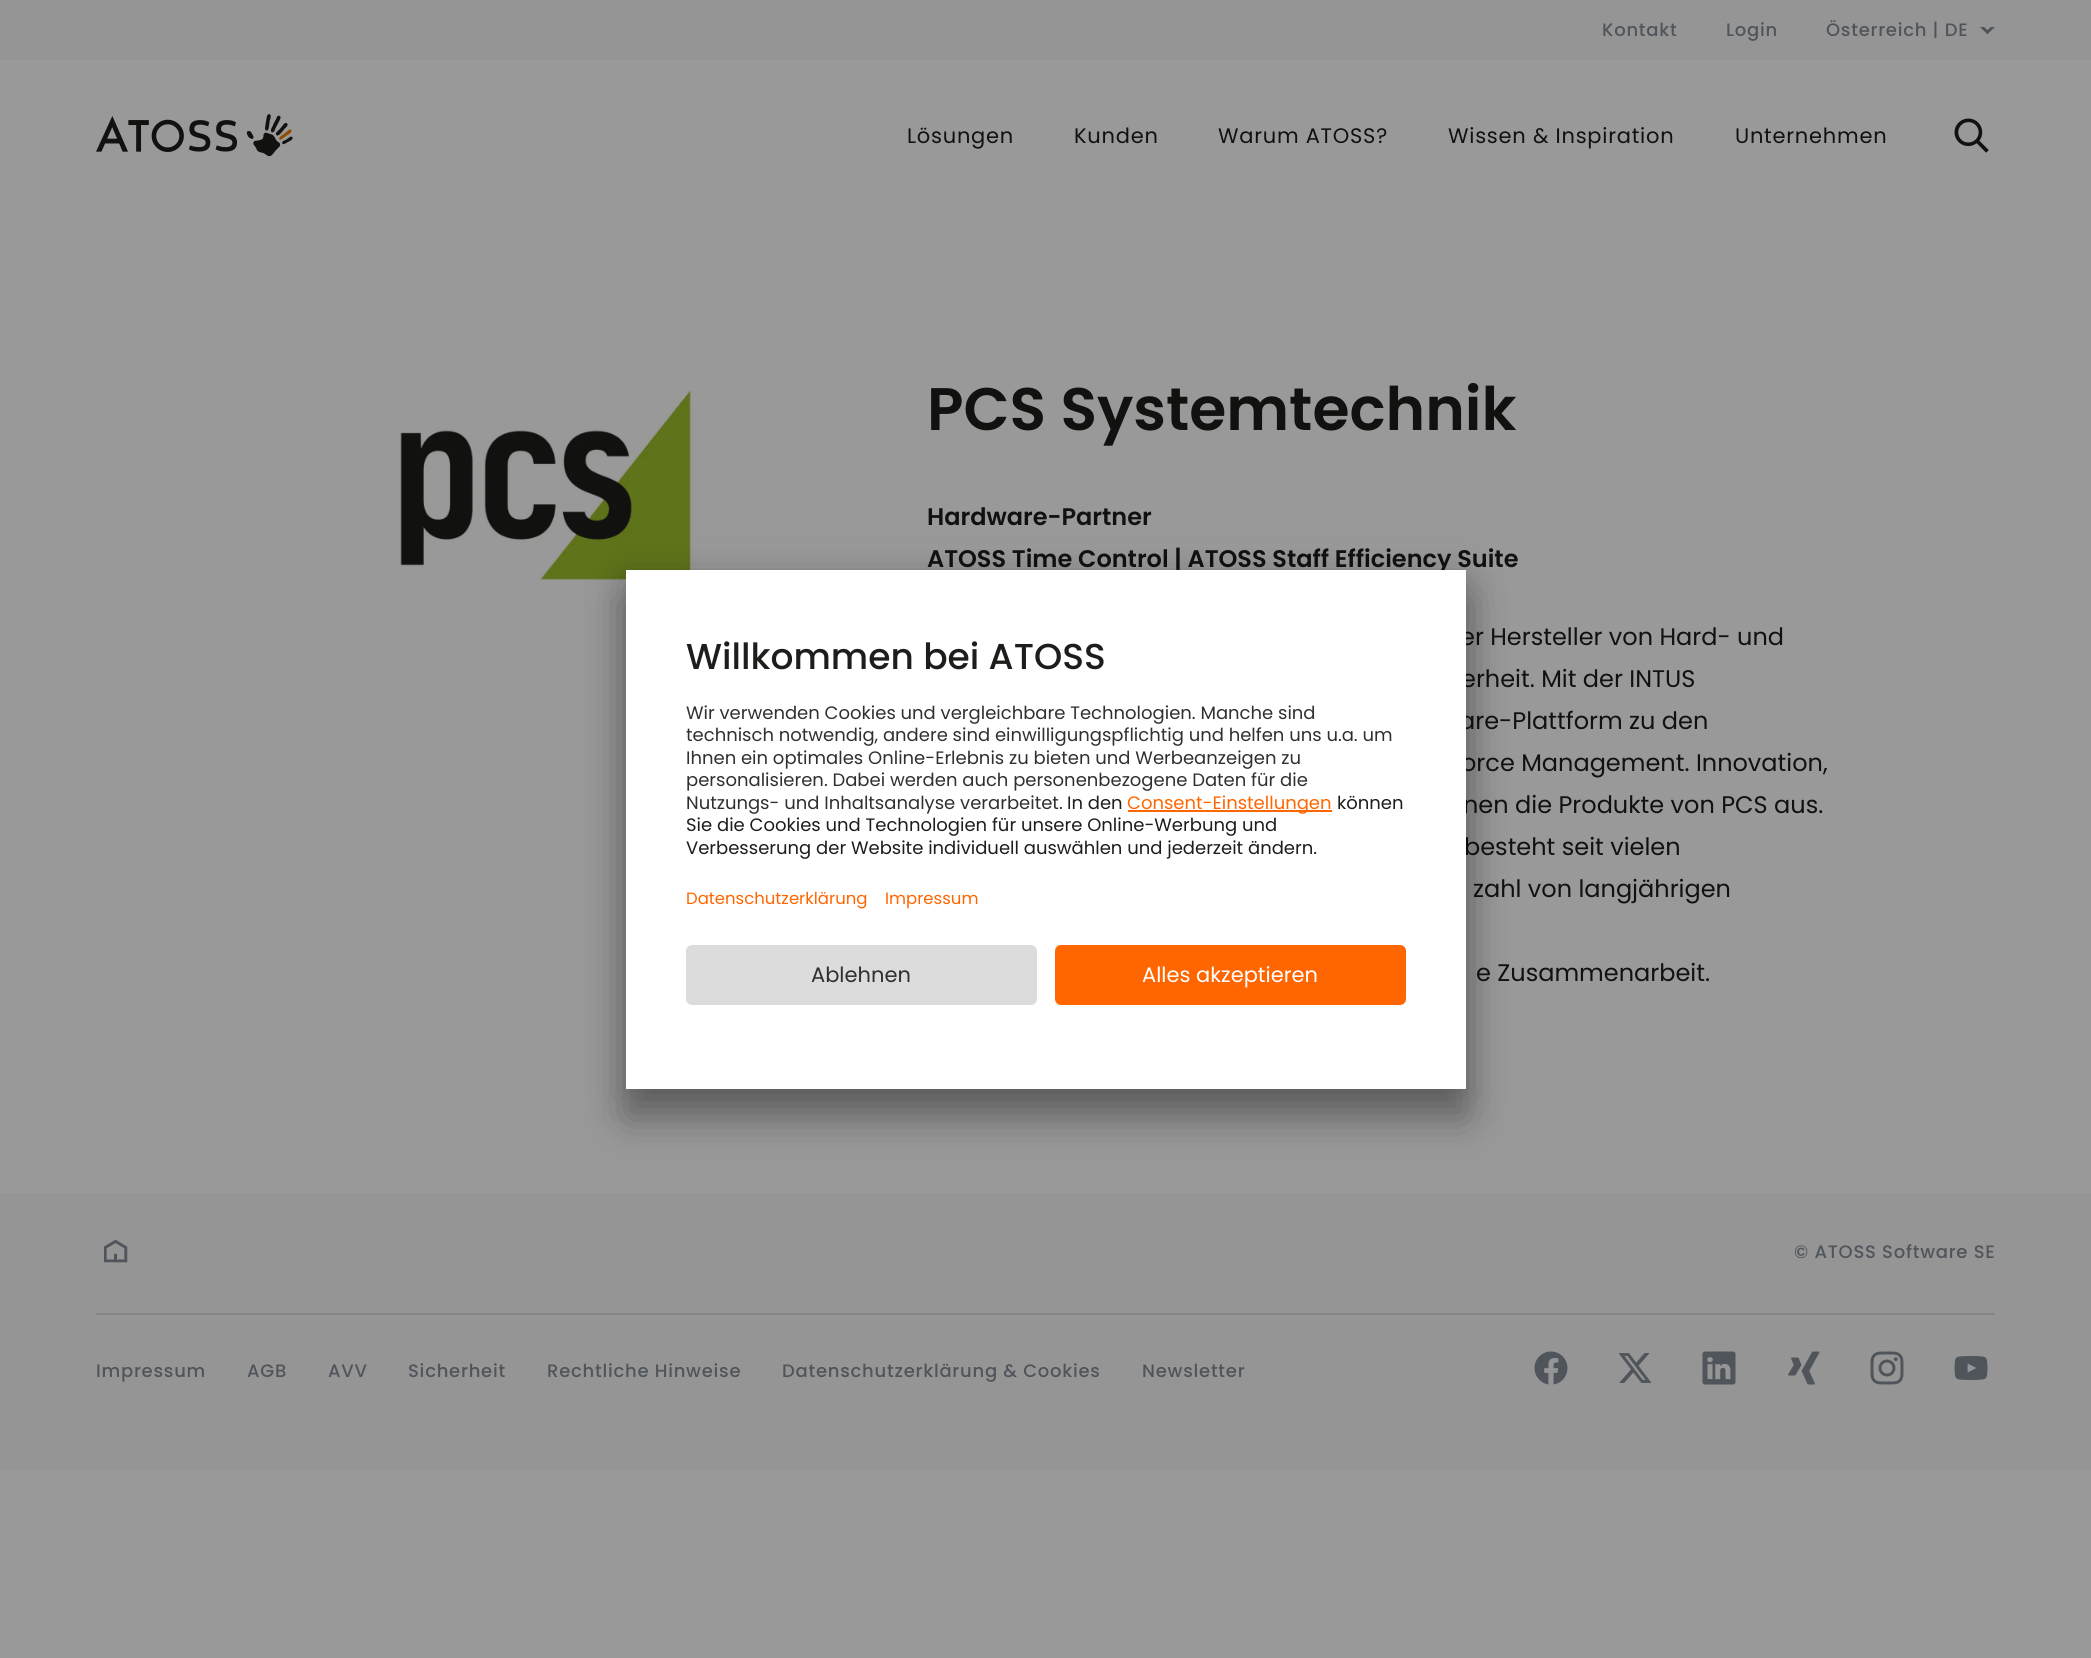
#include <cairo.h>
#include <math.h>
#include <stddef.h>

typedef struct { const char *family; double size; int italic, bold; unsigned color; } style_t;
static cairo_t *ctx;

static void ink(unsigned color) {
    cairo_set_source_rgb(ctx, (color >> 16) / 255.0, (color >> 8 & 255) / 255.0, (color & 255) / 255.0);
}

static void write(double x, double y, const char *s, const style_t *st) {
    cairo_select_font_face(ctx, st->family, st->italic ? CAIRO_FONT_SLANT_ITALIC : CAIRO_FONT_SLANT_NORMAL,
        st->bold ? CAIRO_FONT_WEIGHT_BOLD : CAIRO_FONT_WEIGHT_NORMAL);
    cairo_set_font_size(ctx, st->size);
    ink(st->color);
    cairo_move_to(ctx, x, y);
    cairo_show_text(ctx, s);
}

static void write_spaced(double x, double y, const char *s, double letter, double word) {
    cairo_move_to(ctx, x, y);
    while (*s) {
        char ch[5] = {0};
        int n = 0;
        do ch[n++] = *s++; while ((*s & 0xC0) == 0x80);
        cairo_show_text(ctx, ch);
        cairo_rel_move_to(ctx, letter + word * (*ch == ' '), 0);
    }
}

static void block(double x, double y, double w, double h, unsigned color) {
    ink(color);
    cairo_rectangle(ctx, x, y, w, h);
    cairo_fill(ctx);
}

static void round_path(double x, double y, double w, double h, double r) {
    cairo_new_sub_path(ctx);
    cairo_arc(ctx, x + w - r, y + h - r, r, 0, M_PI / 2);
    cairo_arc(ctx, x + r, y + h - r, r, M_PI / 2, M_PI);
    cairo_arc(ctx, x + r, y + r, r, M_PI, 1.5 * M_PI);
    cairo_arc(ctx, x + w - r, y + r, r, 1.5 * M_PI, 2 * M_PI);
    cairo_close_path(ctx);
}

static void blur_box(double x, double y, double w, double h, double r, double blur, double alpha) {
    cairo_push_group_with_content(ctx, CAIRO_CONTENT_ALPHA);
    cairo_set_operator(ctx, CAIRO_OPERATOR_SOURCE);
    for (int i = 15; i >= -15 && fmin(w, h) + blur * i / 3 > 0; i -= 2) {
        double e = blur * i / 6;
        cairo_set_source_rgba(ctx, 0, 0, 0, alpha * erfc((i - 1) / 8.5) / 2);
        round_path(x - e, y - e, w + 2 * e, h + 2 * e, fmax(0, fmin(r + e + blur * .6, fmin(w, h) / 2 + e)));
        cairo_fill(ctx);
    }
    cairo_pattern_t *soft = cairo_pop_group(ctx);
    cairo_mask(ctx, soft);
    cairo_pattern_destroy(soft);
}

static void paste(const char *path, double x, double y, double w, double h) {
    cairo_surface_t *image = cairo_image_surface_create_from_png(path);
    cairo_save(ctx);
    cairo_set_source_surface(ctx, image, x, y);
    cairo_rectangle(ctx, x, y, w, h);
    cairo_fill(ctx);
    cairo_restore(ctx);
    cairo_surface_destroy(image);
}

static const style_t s1 = {"Poppins SemiBold", 60, 0, 0, 0x111110};
static const style_t s2 = {"Poppins SemiBold", 24, 0, 0, 0x111110};
static const style_t s3 = {"Poppins", 24, 0, 0, 0x111110};
static const style_t s4 = {"Poppins Medium", 36, 0, 0, 0x1d1d1b};
static const style_t s5 = {"Poppins", 18, 0, 0, 0x303030};
static const style_t s6 = {"Poppins", 18, 0, 0, 0x1d1d1b};
static const style_t s7 = {"Poppins", 18, 0, 0, 0xff6600};
static const style_t s8 = {"Poppins", 16.5, 0, 0, 0xff6600};
static const style_t s9 = {"Poppins", 21, 0, 0, 0x303030};
static const style_t s10 = {"Poppins", 21, 0, 0, 0xffffff};

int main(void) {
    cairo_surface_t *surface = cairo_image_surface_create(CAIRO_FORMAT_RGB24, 2091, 1658);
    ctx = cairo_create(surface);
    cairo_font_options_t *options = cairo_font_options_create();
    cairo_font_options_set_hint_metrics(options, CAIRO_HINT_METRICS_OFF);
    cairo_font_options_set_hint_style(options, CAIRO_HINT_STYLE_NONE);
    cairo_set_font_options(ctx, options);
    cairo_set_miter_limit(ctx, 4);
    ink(0x999999);
    cairo_paint(ctx);
    block(0, 0, 2091, 60, 0x959595);
    cairo_select_font_face(ctx, "Poppins Medium", CAIRO_FONT_SLANT_NORMAL, CAIRO_FONT_WEIGHT_NORMAL);
    cairo_set_font_size(ctx, 18);
    ink(0x50555b);
    write_spaced(1602, 36, "Kontakt", 0.75, 0);
    write_spaced(1726, 36, "Login", 0.75, 0);
    write_spaced(1826, 36, "Österreich | DE", 0.75, 0);
    paste("pic1.png", 1980, 27, 15, 8);
    paste("pic2.png", 96, 114, 197, 42);
    cairo_select_font_face(ctx, "Poppins", CAIRO_FONT_SLANT_NORMAL, CAIRO_FONT_WEIGHT_NORMAL);
    cairo_set_font_size(ctx, 21);
    ink(0x111110);
    write_spaced(907, 143, "Lösungen", 0.75, 0);
    write_spaced(1074, 143, "Kunden", 0.75, 0);
    write_spaced(1218, 143, "Warum ATOSS?", 0.75, 0);
    write_spaced(1448, 143, "Wissen & Inspiration", 0.75, 0);
    write_spaced(1735, 143, "Unternehmen", 0.75, 0);
    paste("pic3.png", 1954, 118, 35, 35);
    paste("pic4.png", 400, 390, 292, 191);
    write(927, 430, "PCS Systemtechnik", &s1);
    write(927, 525, "Hardware-Partner", &s2);
    write(927, 567, "ATOSS Time Control | ATOSS Staff Efficiency Suite", &s2);
    write(1460, 645, "er Hersteller von Hard- und", &s3);
    write(1461, 687, "erheit. Mit der INTUS", &s3);
    write(1459, 729, "are-Plattform zu den", &s3);
    write(1461, 771, "orce Management. Innovation,", &s3);
    write(1463, 813, "nen die Produkte von PCS aus.", &s3);
    write(1464, 855, "besteht seit vielen", &s3);
    write(1473, 897, "zahl von langjährigen", &s3);
    write(1476, 981, "e Zusammenarbeit.", &s3);
    block(0, 1193, 2091, 277, 0x959595);
    paste("pic5.png", 104, 1239, 24, 24);
    cairo_select_font_face(ctx, "Poppins Medium", CAIRO_FONT_SLANT_NORMAL, CAIRO_FONT_WEIGHT_NORMAL);
    cairo_set_font_size(ctx, 18);
    ink(0x50555b);
    write_spaced(1794, 1258, "© ATOSS Software SE", 0.75, 0);
    block(96, 1313, 1899, 2, 0x868686);
    ink(0x50555b);
    write_spaced(96, 1377, "Impressum", 0.75, 0);
    write_spaced(247, 1377, "AGB", 0.75, 0);
    write_spaced(328, 1377, "AVV", 0.75, 0);
    write_spaced(408, 1377, "Sicherheit", 0.75, 0);
    write_spaced(547, 1377, "Rechtliche Hinweise", 0.75, 0);
    write_spaced(782, 1377, "Datenschutzerklärung & Cookies", 0.75, 0);
    write_spaced(1142, 1377, "Newsletter", 0.75, 0);
    paste("pic6.png", 1534, 1351, 34, 34);
    paste("pic7.png", 1618, 1353, 34, 30);
    paste("pic8.png", 1702, 1351, 34, 34);
    paste("pic9.png", 1788, 1351, 32, 34);
    paste("pic10.png", 1870, 1351, 34, 34);
    paste("pic11.png", 1954, 1356, 34, 24);
    ink(0x000000);
    blur_box(626, 600, 840, 519, 0, 21, 0.3);
    blur_box(626, 578, 840, 519, 0, 19.5, 0.22);
    block(626, 570, 840, 519, 0xffffff);
    write(686, 669, "Willkommen bei ATOSS", &s4);
    write(686, 719, "Wir verwenden Cookies und vergleichbare Technologien. Manche sind", &s5);
    write(686, 741, "technisch notwendig, andere sind einwilligungspflichtig und helfen uns u.a. um", &s5);
    write(686, 764, "Ihnen ein optimales Online-Erlebnis zu bieten und Werbeanzeigen zu", &s5);
    write(686, 786, "personalisieren. Dabei werden auch personenbezogene Daten für die", &s5);
    write(686, 809, "Nutzungs- und Inhaltsanalyse verarbeitet.", &s5);
    write(1067, 809, "In den", &s6);
    block(1128, 810, 204, 2, 0xff6600);
    write(1127, 809, "Consent-Einstellungen", &s7);
    write(1337, 809, "können", &s6);
    write(686, 831, "Sie die Cookies und Technologien für unsere Online-Werbung und", &s6);
    write(686, 854, "Verbesserung der Website individuell auswählen und jederzeit ändern.", &s6);
    write(686, 904, "Datenschutzerklärung", &s8);
    write(885, 904, "Impressum", &s8);
    ink(0xdcdcdc);
    round_path(686, 945, 351, 60, 6);
    cairo_fill(ctx);
    write(811, 982, "Ablehnen", &s9);
    ink(0xff6600);
    round_path(1055, 945, 351, 60, 6);
    cairo_fill(ctx);
    write(1142, 982, "Alles akzeptieren", &s10);
    cairo_surface_write_to_png(surface, "screenshot.png");
    cairo_font_options_destroy(options);
    cairo_destroy(ctx);
    cairo_surface_destroy(surface);
    return 0;
}
